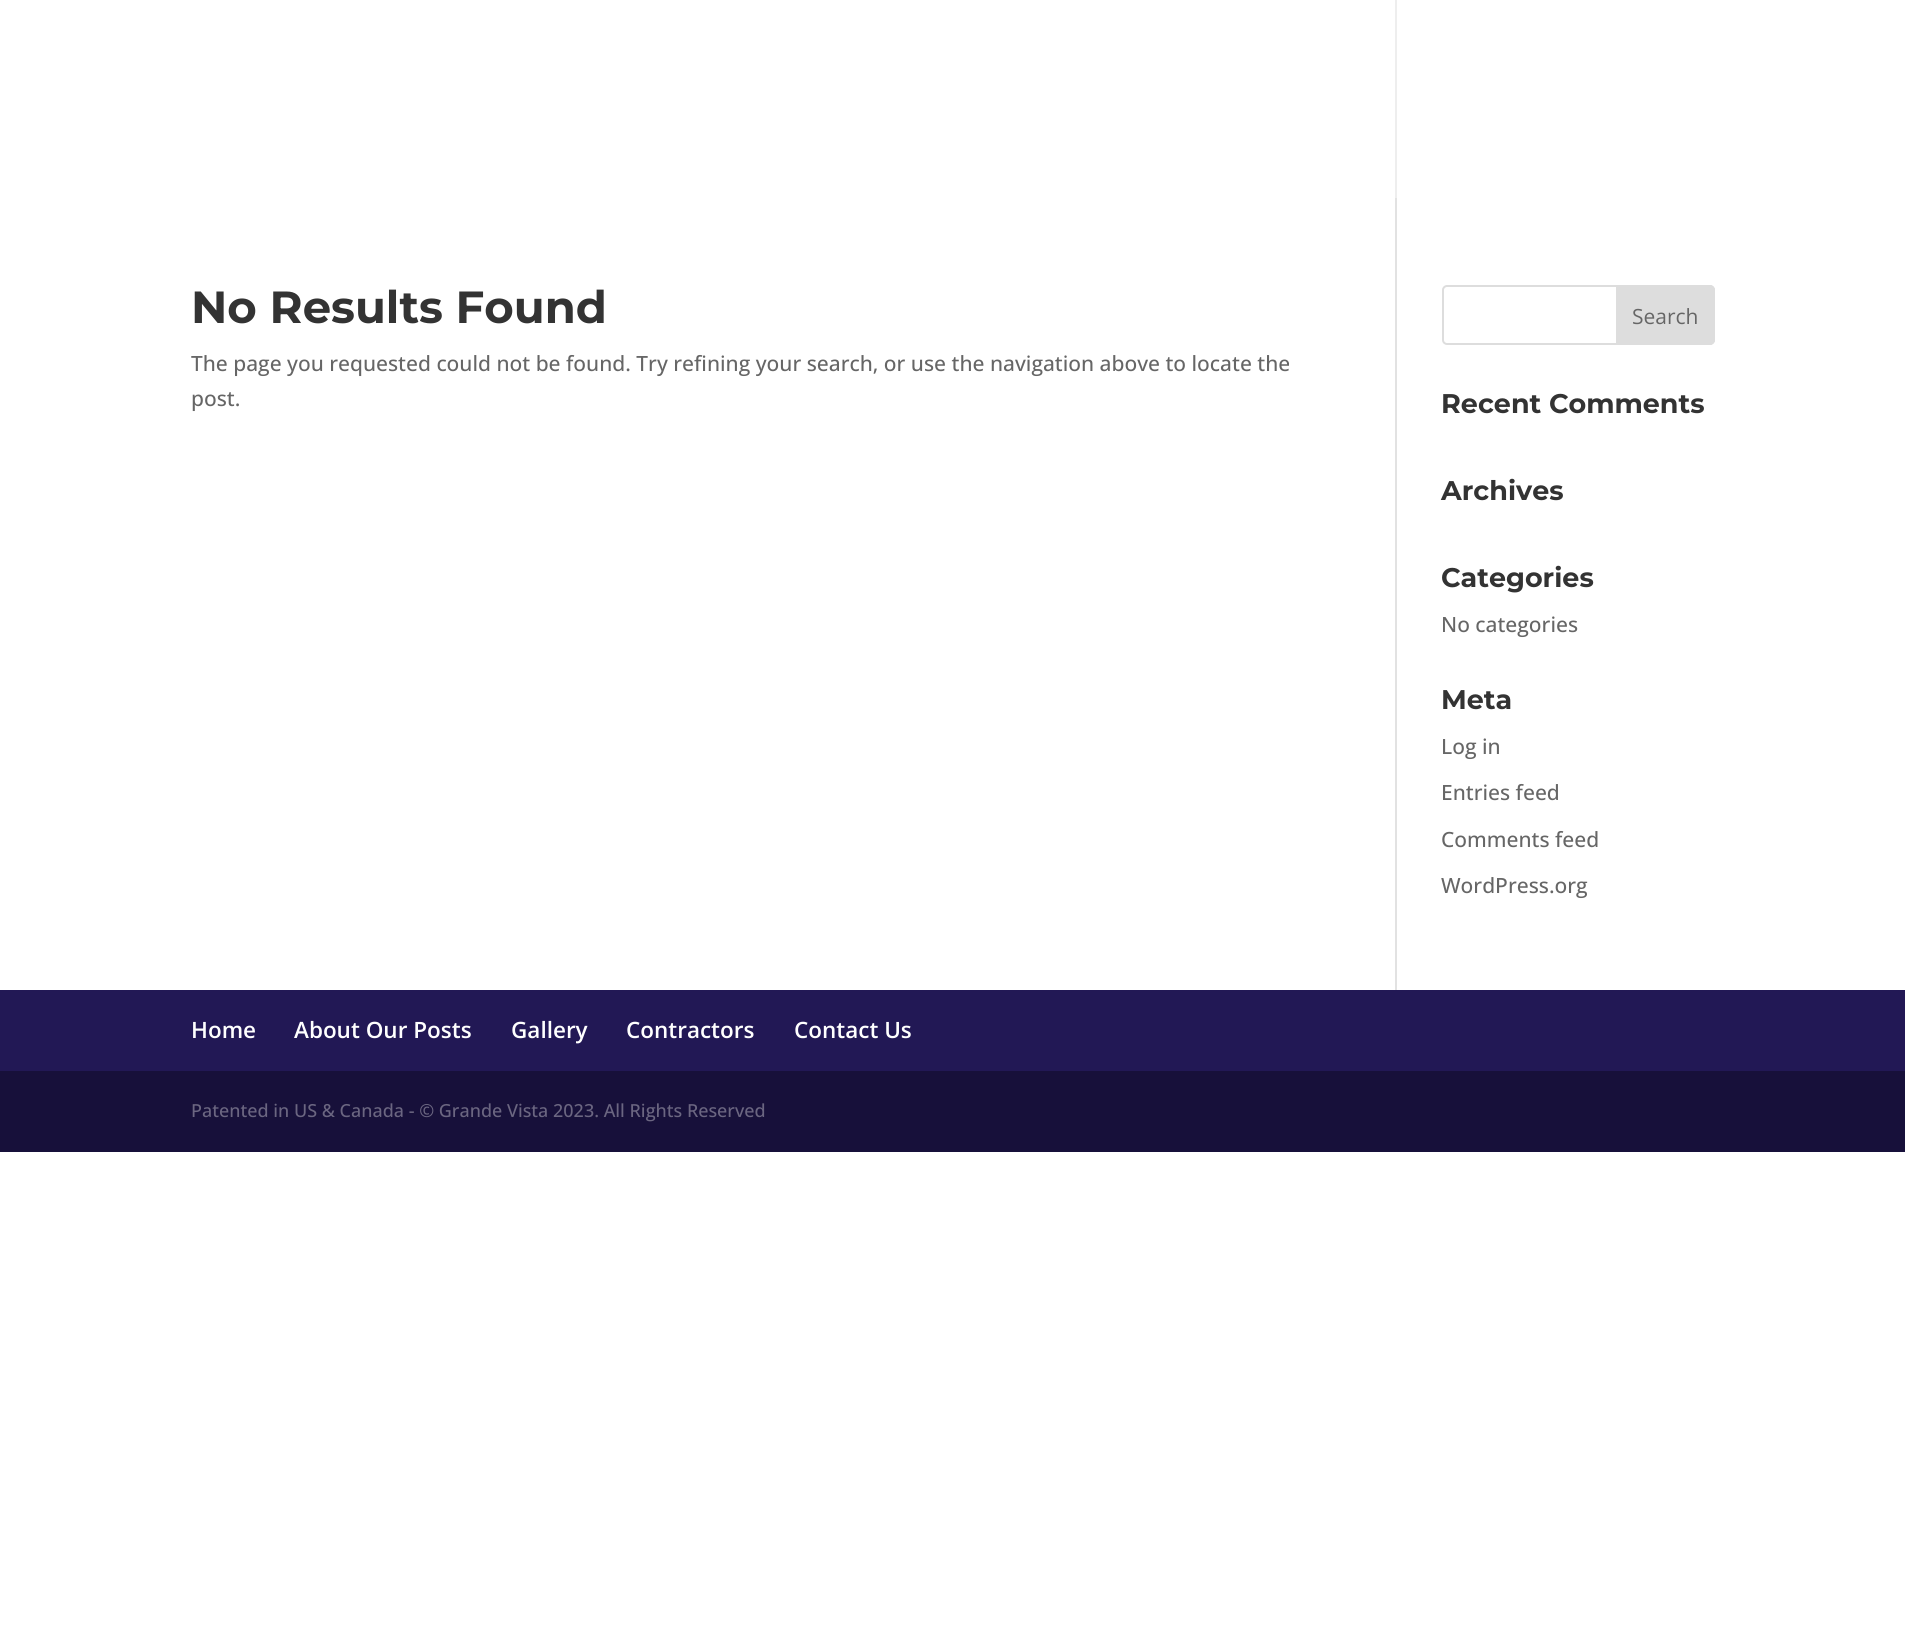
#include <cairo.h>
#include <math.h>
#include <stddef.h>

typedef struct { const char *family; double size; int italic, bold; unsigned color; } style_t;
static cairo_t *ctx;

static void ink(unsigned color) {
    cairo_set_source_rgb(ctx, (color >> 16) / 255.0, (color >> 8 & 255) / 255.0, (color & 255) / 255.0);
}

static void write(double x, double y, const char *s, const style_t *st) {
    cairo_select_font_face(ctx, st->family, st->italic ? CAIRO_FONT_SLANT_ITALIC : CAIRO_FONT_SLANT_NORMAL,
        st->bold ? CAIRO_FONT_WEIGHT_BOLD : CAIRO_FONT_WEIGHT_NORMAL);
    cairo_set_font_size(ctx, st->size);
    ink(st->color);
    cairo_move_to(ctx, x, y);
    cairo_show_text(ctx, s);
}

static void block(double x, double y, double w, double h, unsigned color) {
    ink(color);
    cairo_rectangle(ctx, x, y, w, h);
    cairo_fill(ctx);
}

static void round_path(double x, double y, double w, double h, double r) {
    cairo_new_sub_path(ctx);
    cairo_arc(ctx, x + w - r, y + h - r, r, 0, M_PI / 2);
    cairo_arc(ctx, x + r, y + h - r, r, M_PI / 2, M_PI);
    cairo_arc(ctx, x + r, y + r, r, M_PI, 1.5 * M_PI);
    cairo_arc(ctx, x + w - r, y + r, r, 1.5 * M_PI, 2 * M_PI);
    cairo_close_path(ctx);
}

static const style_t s1 = {"Montserrat", 45, 0, 1, 0x333333};
static const style_t s2 = {"Open Sans Medium", 21, 0, 0, 0x666666};
static const style_t s3 = {"Open Sans", 21, 0, 0, 0x666666};
static const style_t s4 = {"Montserrat", 27, 0, 1, 0x333333};
static const style_t s5 = {"Open Sans SemiBold", 22.5, 0, 0, 0xffffff};
static const style_t s6 = {"Open Sans Medium", 18, 0, 0, 0x6b6681};

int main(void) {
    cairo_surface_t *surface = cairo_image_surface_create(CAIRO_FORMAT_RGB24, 1905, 1634);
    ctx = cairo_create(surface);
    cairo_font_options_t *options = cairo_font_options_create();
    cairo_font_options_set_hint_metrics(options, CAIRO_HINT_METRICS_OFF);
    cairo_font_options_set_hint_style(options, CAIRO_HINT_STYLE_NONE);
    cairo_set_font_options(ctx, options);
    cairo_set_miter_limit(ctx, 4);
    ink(0xffffff);
    cairo_paint(ctx);
    block(1395, 198, 2, 792, 0xe2e2e2);
    block(1395, 0, 2, 198, 0xeeeeee);
    write(191, 323, "No Results Found", &s1);
    write(191, 371, "The page you requested could not be found. Try refining your search, or use the navigation above to locate the", &s2);
    write(191, 406, "post.", &s2);
    round_path(1443, 286, 271, 58, 4);
    ink(0xdddddd);
    cairo_stroke(ctx);
    cairo_new_path(ctx);
    cairo_move_to(ctx, 1617, 286);
    cairo_line_to(ctx, 1710, 286);
    cairo_curve_to(ctx, 1712, 286, 1714, 288, 1714, 290);
    cairo_line_to(ctx, 1714, 340);
    cairo_curve_to(ctx, 1714, 342, 1712, 344, 1710, 344);
    cairo_line_to(ctx, 1617, 344);
    cairo_close_path(ctx);
    cairo_fill_preserve(ctx);
    cairo_stroke(ctx);
    write(1632, 324, "Search", &s3);
    write(1441, 413, "Recent Comments", &s4);
    write(1441, 500, "Archives", &s4);
    write(1441, 587, "Categories", &s4);
    write(1441, 632, "No categories", &s2);
    write(1441, 709, "Meta", &s4);
    write(1441, 754, "Log in", &s2);
    write(1441, 800, "Entries feed", &s2);
    write(1441, 847, "Comments feed", &s2);
    write(1441, 893, "WordPress.org", &s2);
    block(0, 990, 1905, 81, 0x221855);
    write(191, 1038, "Home", &s5);
    write(294, 1038, "About Our Posts", &s5);
    write(511, 1038, "Gallery", &s5);
    write(626, 1038, "Contractors", &s5);
    write(794, 1038, "Contact Us", &s5);
    block(0, 1071, 1905, 81, 0x17103a);
    write(191, 1117, "Patented in US & Canada - © Grande Vista 2023. All Rights Reserved", &s6);
    cairo_surface_write_to_png(surface, "screenshot.png");
    cairo_font_options_destroy(options);
    cairo_destroy(ctx);
    cairo_surface_destroy(surface);
    return 0;
}
